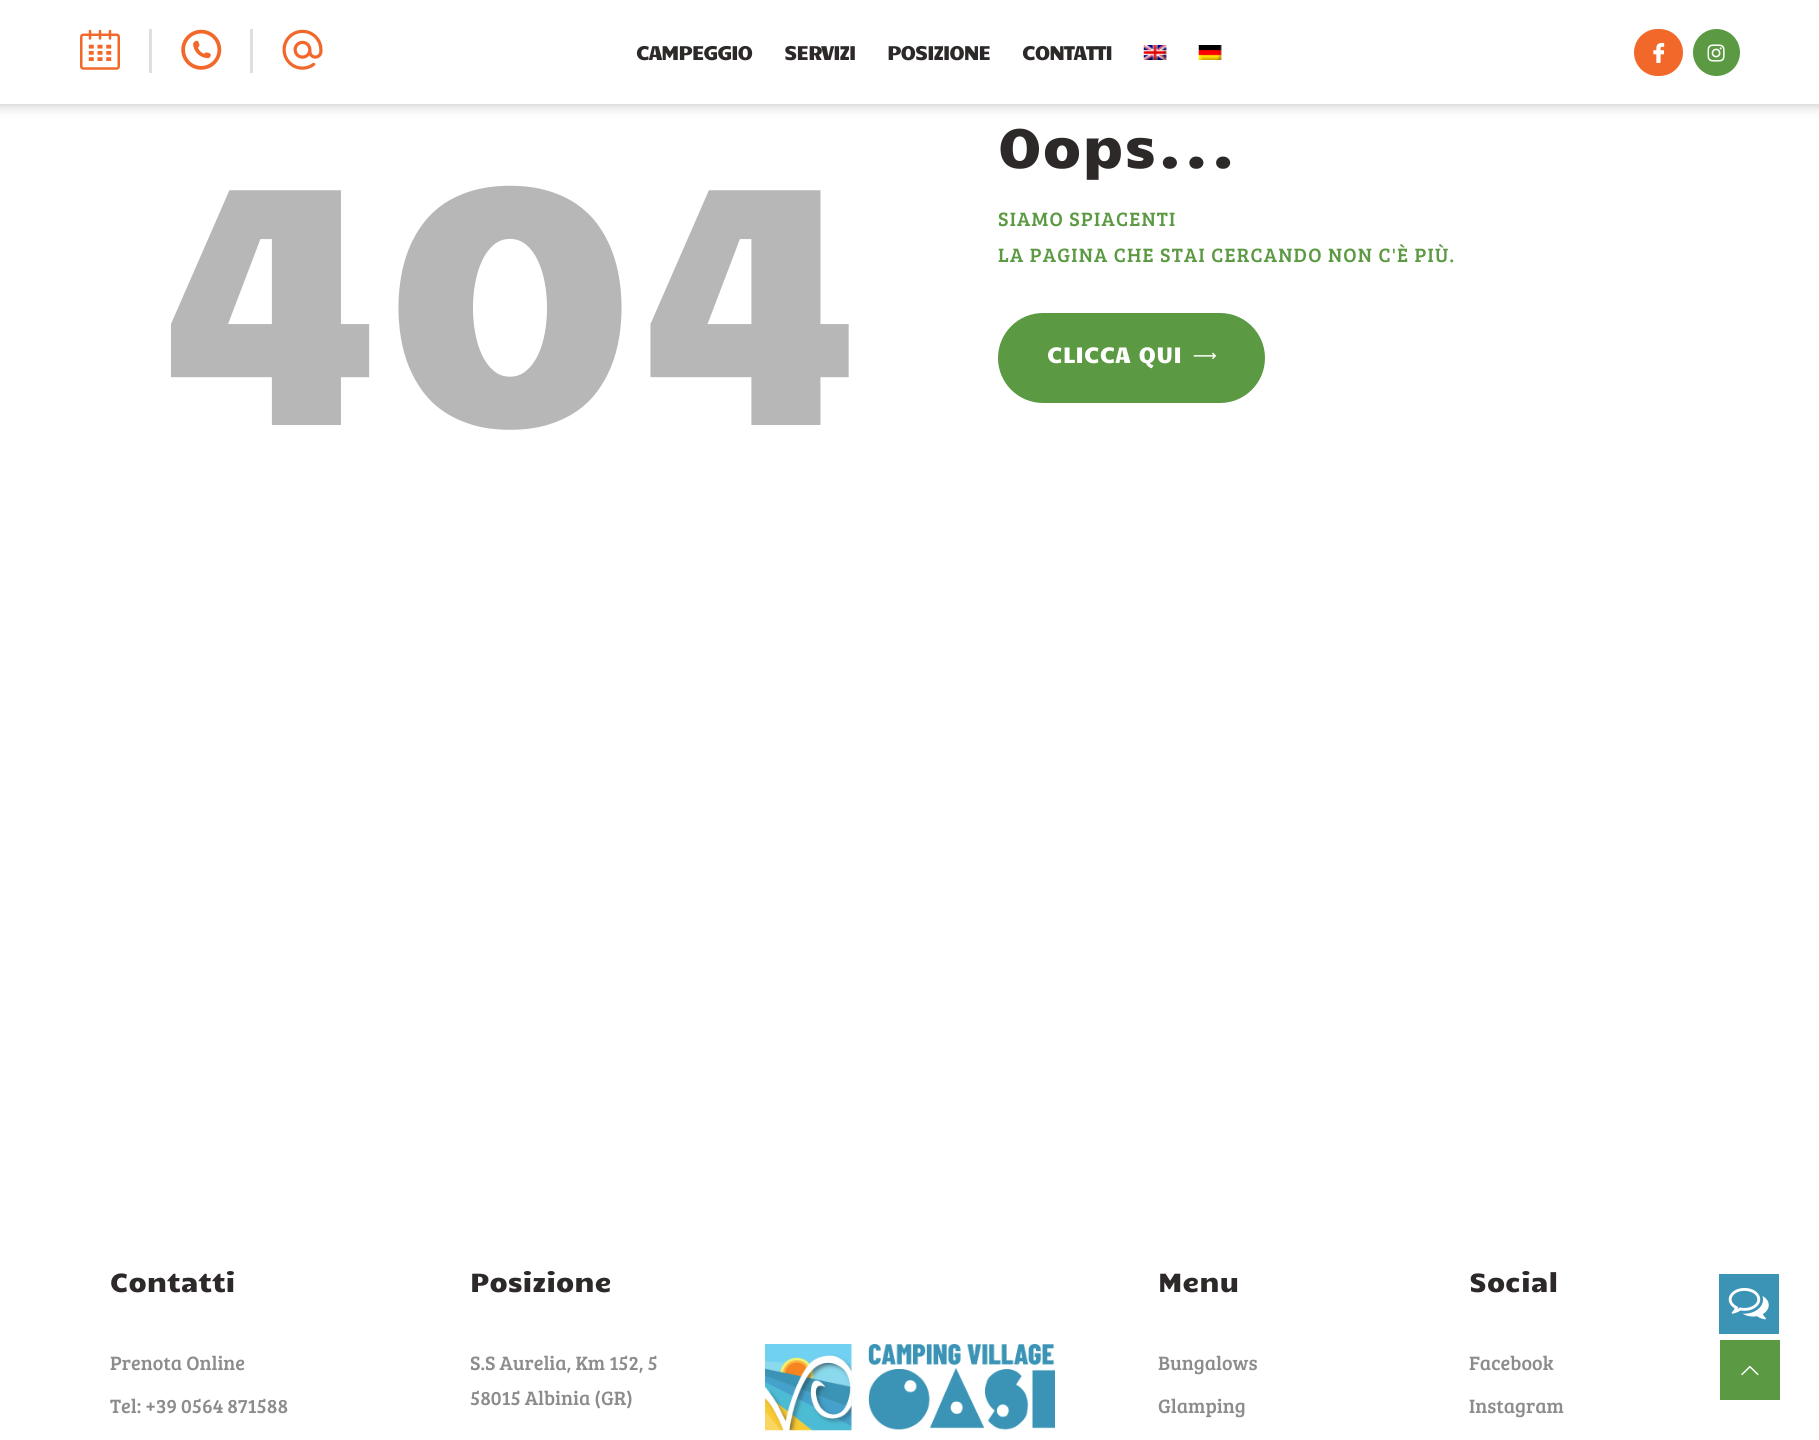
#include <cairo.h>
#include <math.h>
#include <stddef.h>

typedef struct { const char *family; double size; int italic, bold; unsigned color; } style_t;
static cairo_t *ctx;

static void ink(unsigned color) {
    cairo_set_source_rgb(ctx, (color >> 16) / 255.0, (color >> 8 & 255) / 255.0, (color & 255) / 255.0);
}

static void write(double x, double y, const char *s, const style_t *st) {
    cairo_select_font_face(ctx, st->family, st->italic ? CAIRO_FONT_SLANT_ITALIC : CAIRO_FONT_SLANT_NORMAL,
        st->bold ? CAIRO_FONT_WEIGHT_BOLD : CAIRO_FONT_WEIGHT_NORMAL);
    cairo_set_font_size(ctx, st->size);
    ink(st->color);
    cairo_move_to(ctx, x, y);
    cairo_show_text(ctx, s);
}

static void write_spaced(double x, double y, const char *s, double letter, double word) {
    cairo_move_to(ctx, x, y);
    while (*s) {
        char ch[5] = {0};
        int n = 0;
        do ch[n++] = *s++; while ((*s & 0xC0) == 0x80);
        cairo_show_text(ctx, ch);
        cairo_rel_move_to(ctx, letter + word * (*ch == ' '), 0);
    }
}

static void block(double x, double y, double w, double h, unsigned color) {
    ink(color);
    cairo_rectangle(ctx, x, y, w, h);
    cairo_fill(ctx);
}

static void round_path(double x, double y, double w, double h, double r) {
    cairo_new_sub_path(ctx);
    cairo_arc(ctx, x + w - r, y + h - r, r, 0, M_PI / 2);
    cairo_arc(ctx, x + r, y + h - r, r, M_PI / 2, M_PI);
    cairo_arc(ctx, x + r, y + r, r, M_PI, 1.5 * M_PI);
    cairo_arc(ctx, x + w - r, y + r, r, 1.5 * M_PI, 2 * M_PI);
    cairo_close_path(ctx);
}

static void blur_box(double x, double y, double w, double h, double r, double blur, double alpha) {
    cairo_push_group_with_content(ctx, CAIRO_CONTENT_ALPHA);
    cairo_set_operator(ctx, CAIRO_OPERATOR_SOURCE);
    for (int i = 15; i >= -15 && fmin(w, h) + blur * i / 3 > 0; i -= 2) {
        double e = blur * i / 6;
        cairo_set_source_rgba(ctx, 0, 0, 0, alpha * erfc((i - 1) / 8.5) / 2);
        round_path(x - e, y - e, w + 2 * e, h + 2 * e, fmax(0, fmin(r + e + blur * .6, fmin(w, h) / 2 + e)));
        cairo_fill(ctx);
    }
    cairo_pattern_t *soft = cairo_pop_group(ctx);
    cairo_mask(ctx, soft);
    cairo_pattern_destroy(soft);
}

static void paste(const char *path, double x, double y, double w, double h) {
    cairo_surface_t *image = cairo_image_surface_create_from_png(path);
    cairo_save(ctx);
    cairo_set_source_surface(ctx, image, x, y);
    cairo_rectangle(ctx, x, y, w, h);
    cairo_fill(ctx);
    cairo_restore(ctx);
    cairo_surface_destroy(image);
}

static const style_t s1 = {"Candal", 340, 0, 0, 0xb7b7b7};
static const style_t s2 = {"Candal", 22.5, 0, 0, 0xffffff};
static const style_t s3 = {"Candal", 26.5, 0, 0, 0x2d2929};
static const style_t s4 = {"Bree Serif", 20, 0, 0, 0x8c8c8c};

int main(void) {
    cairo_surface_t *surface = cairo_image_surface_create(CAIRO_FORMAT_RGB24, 1819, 1440);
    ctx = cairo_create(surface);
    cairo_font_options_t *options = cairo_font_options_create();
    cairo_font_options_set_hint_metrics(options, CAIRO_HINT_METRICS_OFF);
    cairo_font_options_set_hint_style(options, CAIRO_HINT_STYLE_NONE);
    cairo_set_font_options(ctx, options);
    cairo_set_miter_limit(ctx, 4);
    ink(0xffffff);
    cairo_paint(ctx);
    ink(0x000000);
    blur_box(-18, 3, 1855, 103, 0, 6, 0.2);
    block(0, 0, 1819, 104, 0xffffff);
    paste("pic1.png", 80, 29, 40, 41);
    block(149, 29, 3, 44, 0xdce1dd);
    paste("pic2.png", 181, 29, 41, 41);
    block(250, 29, 3, 44, 0xdce1dd);
    paste("pic3.png", 282, 29, 41, 41);
    cairo_select_font_face(ctx, "Candal", CAIRO_FONT_SLANT_NORMAL, CAIRO_FONT_WEIGHT_NORMAL);
    cairo_set_font_size(ctx, 20);
    ink(0x2d2929);
    write_spaced(636, 60, "CAMPEGGIO", -1.25, 0);
    write_spaced(784, 60, "SERVIZI", -1.25, 0);
    write_spaced(887, 60, "POSIZIONE", -1.25, 0);
    write_spaced(1022, 60, "CONTATTI", -1.25, 0);
    paste("pic4.png", 1143, 45, 24, 15);
    paste("pic5.png", 1198, 45, 24, 15);
    ink(0xf2682a);
    round_path(1634, 29, 49, 47, 23.5);
    cairo_fill(ctx);
    paste("pic6.png", 1653, 43, 12, 20);
    ink(0x5b9a42);
    cairo_arc(ctx, 1716.5, 52.5, 23.5, 0, 2 * M_PI);
    cairo_fill(ctx);
    paste("pic7.png", 1707, 44, 18, 18);
    write(157, 425, "404", &s1);
    cairo_set_font_size(ctx, 56);
    ink(0x2d2929);
    write_spaced(998, 168, "Oops...", 1.25, 0);
    cairo_select_font_face(ctx, "Bree Serif", CAIRO_FONT_SLANT_NORMAL, CAIRO_FONT_WEIGHT_NORMAL);
    cairo_set_font_size(ctx, 20);
    ink(0x5b9a42);
    write_spaced(998, 226, "SIAMO SPIACENTI", 1.25, 0);
    write_spaced(998, 262, "LA PAGINA CHE STAI CERCANDO NON C'È PIÙ.", 1.25, 0);
    round_path(998, 313, 267, 90, 45);
    cairo_fill(ctx);
    write(1047, 363, "CLICCA QUI", &s2);
    paste("pic8.png", 1193, 352, 24, 8);
    write(110, 1292, "Contatti", &s3);
    write(110, 1370, "Prenota Online", &s4);
    write(110, 1413, "Tel: +39 0564 871588", &s4);
    write(470, 1292, "Posizione", &s3);
    write(470, 1370, "S.S Aurelia, Km 152, 5", &s4);
    write(470, 1405, "58015 Albinia (GR)", &s4);
    paste("pic9.png", 765, 1344, 290, 87);
    write(1158, 1292, "Menu", &s3);
    write(1158, 1370, "Bungalows", &s4);
    write(1158, 1413, "Glamping", &s4);
    write(1469, 1292, "Social", &s3);
    write(1469, 1370, "Facebook", &s4);
    write(1469, 1413, "Instagram", &s4);
    block(1719, 1274, 60, 60, 0x3b94b5);
    paste("pic10.png", 1728, 1288, 41, 32);
    block(1720, 1340, 60, 60, 0x5b9a42);
    paste("pic11.png", 1741, 1365, 18, 11);
    cairo_surface_write_to_png(surface, "screenshot.png");
    cairo_font_options_destroy(options);
    cairo_destroy(ctx);
    cairo_surface_destroy(surface);
    return 0;
}
